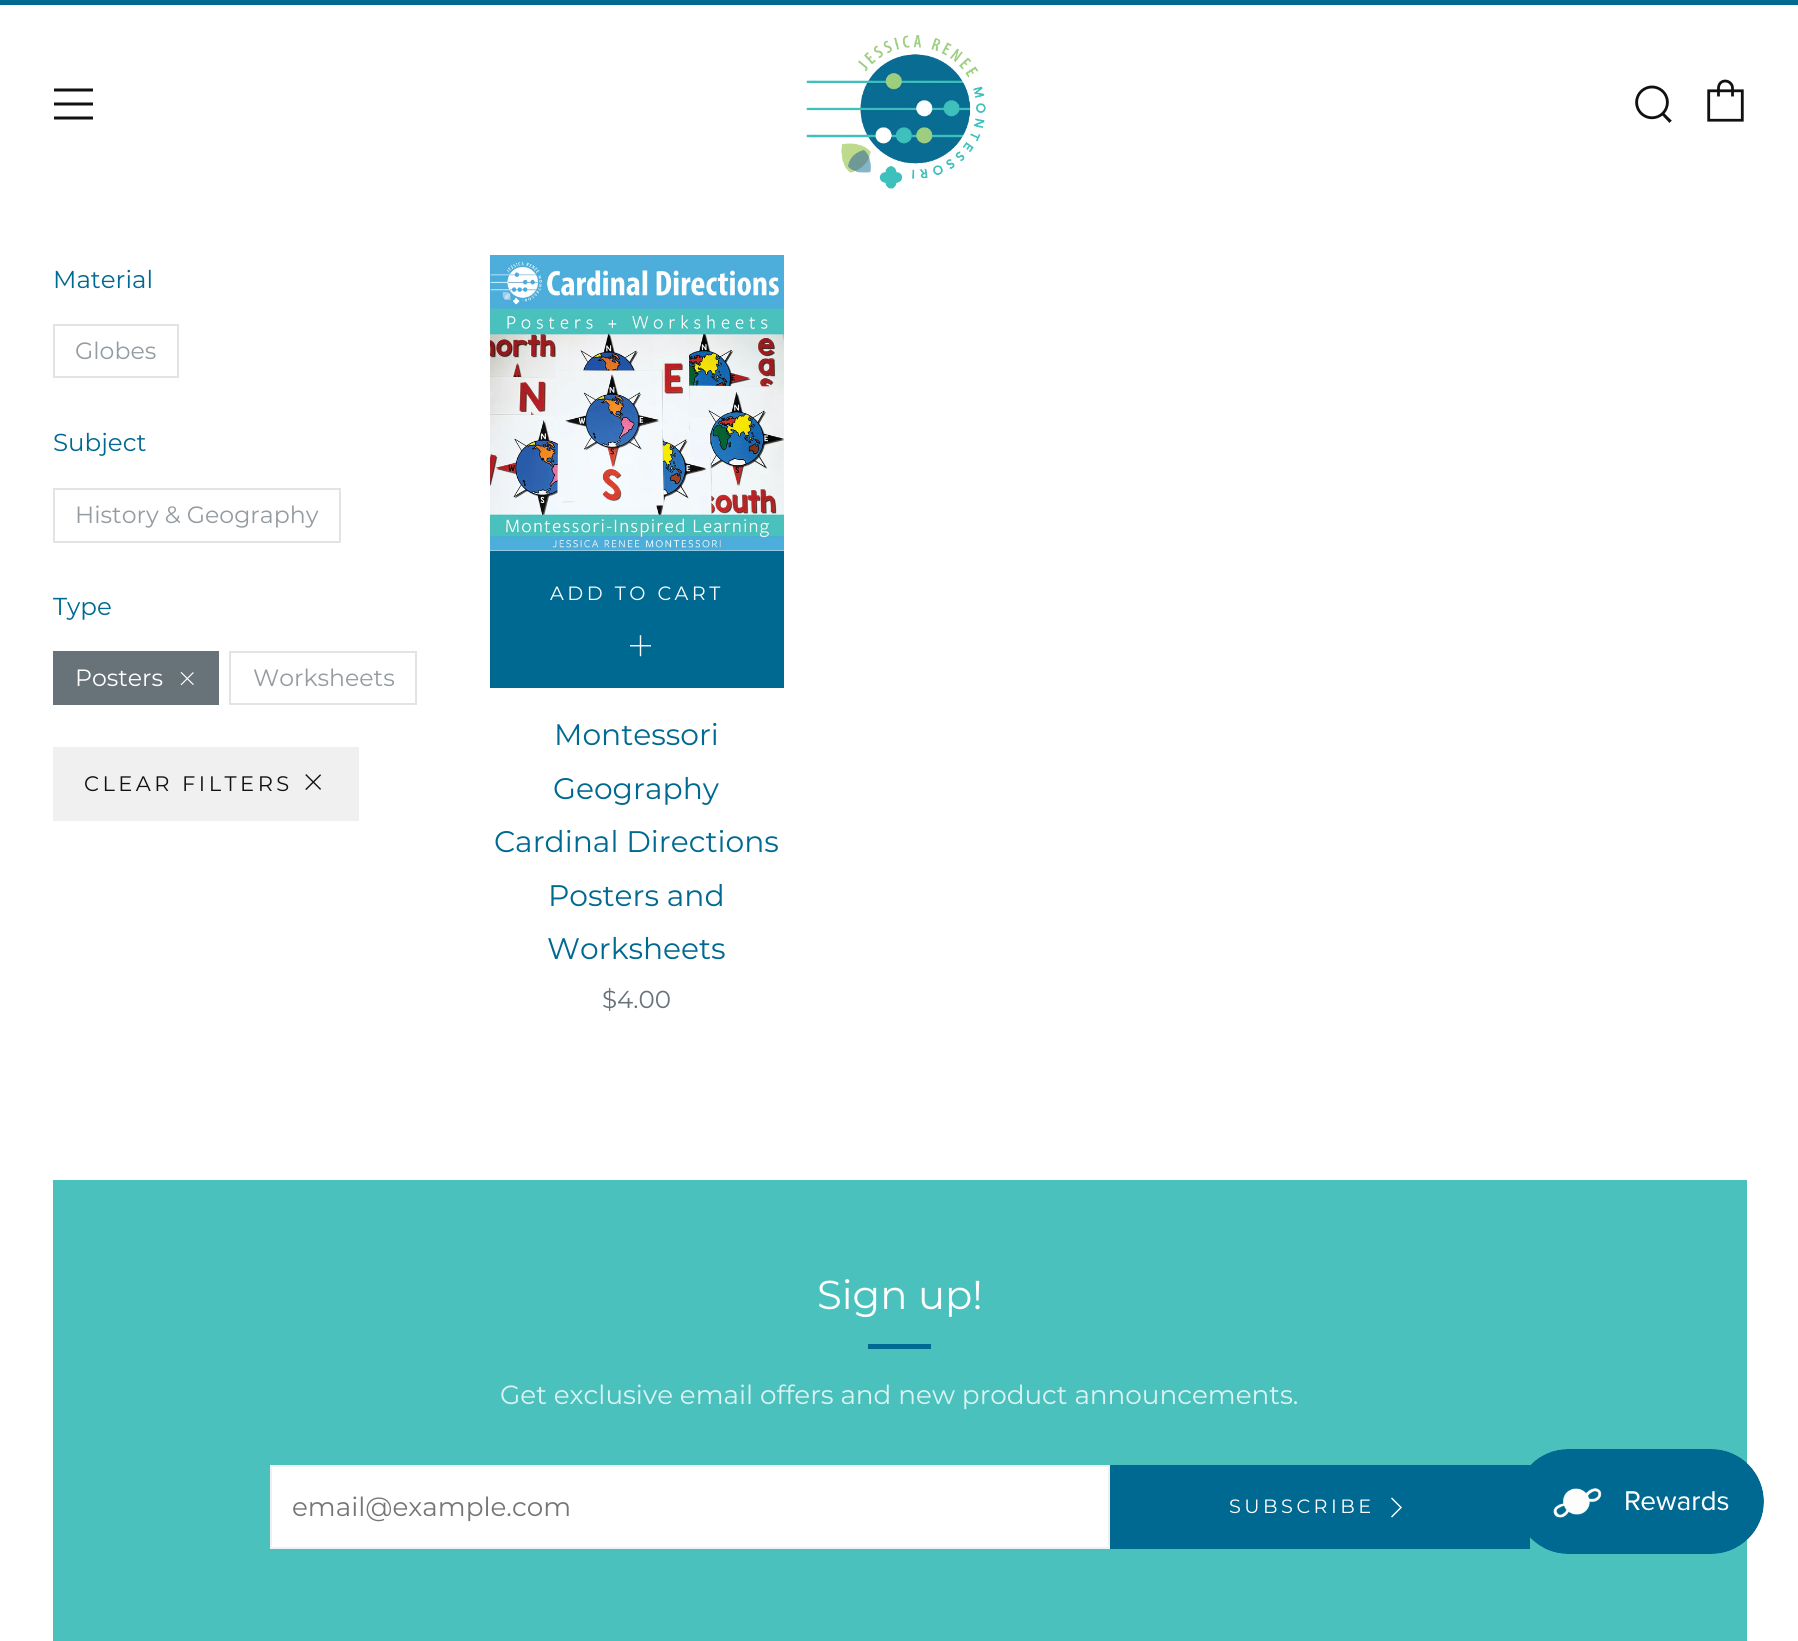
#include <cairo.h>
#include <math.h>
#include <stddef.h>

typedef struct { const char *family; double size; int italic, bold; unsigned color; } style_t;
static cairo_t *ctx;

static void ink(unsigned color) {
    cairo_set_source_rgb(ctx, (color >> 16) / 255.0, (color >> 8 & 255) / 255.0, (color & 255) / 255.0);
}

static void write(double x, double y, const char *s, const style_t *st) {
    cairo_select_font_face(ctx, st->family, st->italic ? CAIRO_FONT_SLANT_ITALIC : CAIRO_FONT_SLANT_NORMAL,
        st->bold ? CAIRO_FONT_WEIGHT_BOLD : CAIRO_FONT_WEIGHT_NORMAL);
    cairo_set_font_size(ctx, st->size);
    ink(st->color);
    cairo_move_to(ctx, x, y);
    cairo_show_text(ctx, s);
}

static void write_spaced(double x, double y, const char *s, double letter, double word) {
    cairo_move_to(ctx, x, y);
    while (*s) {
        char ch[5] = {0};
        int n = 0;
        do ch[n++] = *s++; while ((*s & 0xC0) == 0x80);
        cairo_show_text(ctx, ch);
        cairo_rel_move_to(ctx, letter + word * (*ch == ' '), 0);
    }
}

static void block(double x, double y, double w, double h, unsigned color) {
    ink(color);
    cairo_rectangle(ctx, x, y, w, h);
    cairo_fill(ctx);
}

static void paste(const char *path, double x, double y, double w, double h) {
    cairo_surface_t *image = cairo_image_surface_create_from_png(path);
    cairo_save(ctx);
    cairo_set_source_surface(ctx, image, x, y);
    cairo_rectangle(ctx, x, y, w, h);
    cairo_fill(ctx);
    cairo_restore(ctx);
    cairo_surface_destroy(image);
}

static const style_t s1 = {"Montserrat", 24.5, 0, 0, 0x006992};
static const style_t s2 = {"Montserrat", 23.6, 0, 0, 0x959ca1};
static const style_t s3 = {"Montserrat", 23.6, 0, 0, 0xffffff};
static const style_t s4 = {"Montserrat", 29.75, 0, 0, 0x006992};
static const style_t s5 = {"Montserrat", 24.5, 0, 0, 0x677279};
static const style_t s6 = {"Montserrat", 40.25, 0, 0, 0xffffff};
static const style_t s7 = {"Montserrat", 26.25, 0, 0, 0xdbf3f2};
static const style_t s8 = {"Montserrat", 26.25, 0, 0, 0x757575};

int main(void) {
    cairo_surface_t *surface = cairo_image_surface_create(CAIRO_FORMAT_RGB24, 1798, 1641);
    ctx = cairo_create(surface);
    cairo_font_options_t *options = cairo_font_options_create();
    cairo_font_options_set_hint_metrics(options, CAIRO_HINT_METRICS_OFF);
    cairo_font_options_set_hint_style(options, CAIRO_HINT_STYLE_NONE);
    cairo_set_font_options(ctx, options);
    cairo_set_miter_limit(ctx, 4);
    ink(0xffffff);
    cairo_paint(ctx);
    block(0, 0, 1798, 5, 0x006992);
    ink(0x111111);
    cairo_new_path(ctx);
    cairo_move_to(ctx, 54, 91.5);
    cairo_line_to(ctx, 93, 91.5);
    cairo_line_to(ctx, 93, 88.5);
    cairo_line_to(ctx, 54, 88.5);
    cairo_close_path(ctx);
    cairo_move_to(ctx, 54, 119.5);
    cairo_line_to(ctx, 93, 119.5);
    cairo_line_to(ctx, 93, 116.5);
    cairo_line_to(ctx, 54, 116.5);
    cairo_close_path(ctx);
    cairo_move_to(ctx, 54, 105.5);
    cairo_line_to(ctx, 93, 105.5);
    cairo_line_to(ctx, 93, 102.5);
    cairo_line_to(ctx, 54, 102.5);
    cairo_close_path(ctx);
    cairo_fill(ctx);
    paste("pic1.png", 806, 35, 180, 154);
    paste("pic2.png", 1635, 85, 37, 38);
    paste("pic3.png", 1707, 79, 37, 43);
    write(53, 288, "Material", &s1);
    cairo_rectangle(ctx, 54, 325, 124, 52);
    ink(0xe1e3e4);
    cairo_stroke(ctx);
    write(75, 359, "Globes", &s2);
    write(53, 451, "Subject", &s1);
    cairo_rectangle(ctx, 54, 489, 286, 53);
    ink(0xe1e3e4);
    cairo_stroke(ctx);
    write(75, 523, "History & Geography", &s2);
    write(53, 615, "Type", &s1);
    block(53, 651, 166, 54, 0x677279);
    write(75, 686, "Posters", &s3);
    paste("pic4.png", 180, 672, 14, 14);
    cairo_rectangle(ctx, 230, 652, 186, 52);
    ink(0xe1e3e4);
    cairo_stroke(ctx);
    write(253, 686, "Worksheets", &s2);
    block(53, 747, 306, 74, 0xf0f0f0);
    cairo_set_font_size(ctx, 21);
    ink(0x111111);
    write_spaced(84, 791, "CLEAR FILTERS", 3.5, 0);
    paste("pic5.png", 305, 774, 16, 16);
    block(490, 550, 294, 1, 0xf0f0f0);
    paste("pic6.png", 490, 255, 294, 296);
    block(490, 551, 294, 137, 0x006992);
    cairo_set_font_size(ctx, 19.25);
    ink(0xffffff);
    write_spaced(550, 600, "ADD TO CART", 3.5, 0);
    paste("pic7.png", 630, 635, 21, 22);
    write(554, 745, "Montessori", &s4);
    write(553, 799, "Geography", &s4);
    write(494, 852, "Cardinal Directions", &s4);
    write(548, 906, "Posters and", &s4);
    write(547, 959, "Worksheets", &s4);
    write(602, 1008, "$4.00", &s5);
    block(53, 1180, 1694, 461, 0x4bc1be);
    write(817, 1309, "Sign up!", &s6);
    block(868, 1344, 63, 5, 0x006992);
    write(500, 1404, "Get exclusive email offers and new product announcements.", &s7);
    ink(0xffffff);
    cairo_rectangle(ctx, 271, 1466, 838, 82);
    cairo_fill_preserve(ctx);
    ink(0xf0f0f0);
    cairo_stroke(ctx);
    write(292, 1516, "email@example.com", &s8);
    block(1110, 1465, 420, 84, 0x006992);
    cairo_set_font_size(ctx, 19.25);
    ink(0xffffff);
    write_spaced(1229, 1513, "SUBSCRIBE", 3.5, 0);
    cairo_new_path(ctx);
    cairo_move_to(ctx, 1391, 1516.5);
    cairo_line_to(ctx, 1392, 1517.5);
    cairo_line_to(ctx, 1402, 1507.5);
    cairo_line_to(ctx, 1392, 1497.5);
    cairo_line_to(ctx, 1391, 1498.5);
    cairo_line_to(ctx, 1400, 1507.5);
    cairo_close_path(ctx);
    cairo_fill(ctx);
    paste("pic8.png", 1530, 1449, 234, 105);
    cairo_surface_write_to_png(surface, "screenshot.png");
    cairo_font_options_destroy(options);
    cairo_destroy(ctx);
    cairo_surface_destroy(surface);
    return 0;
}
